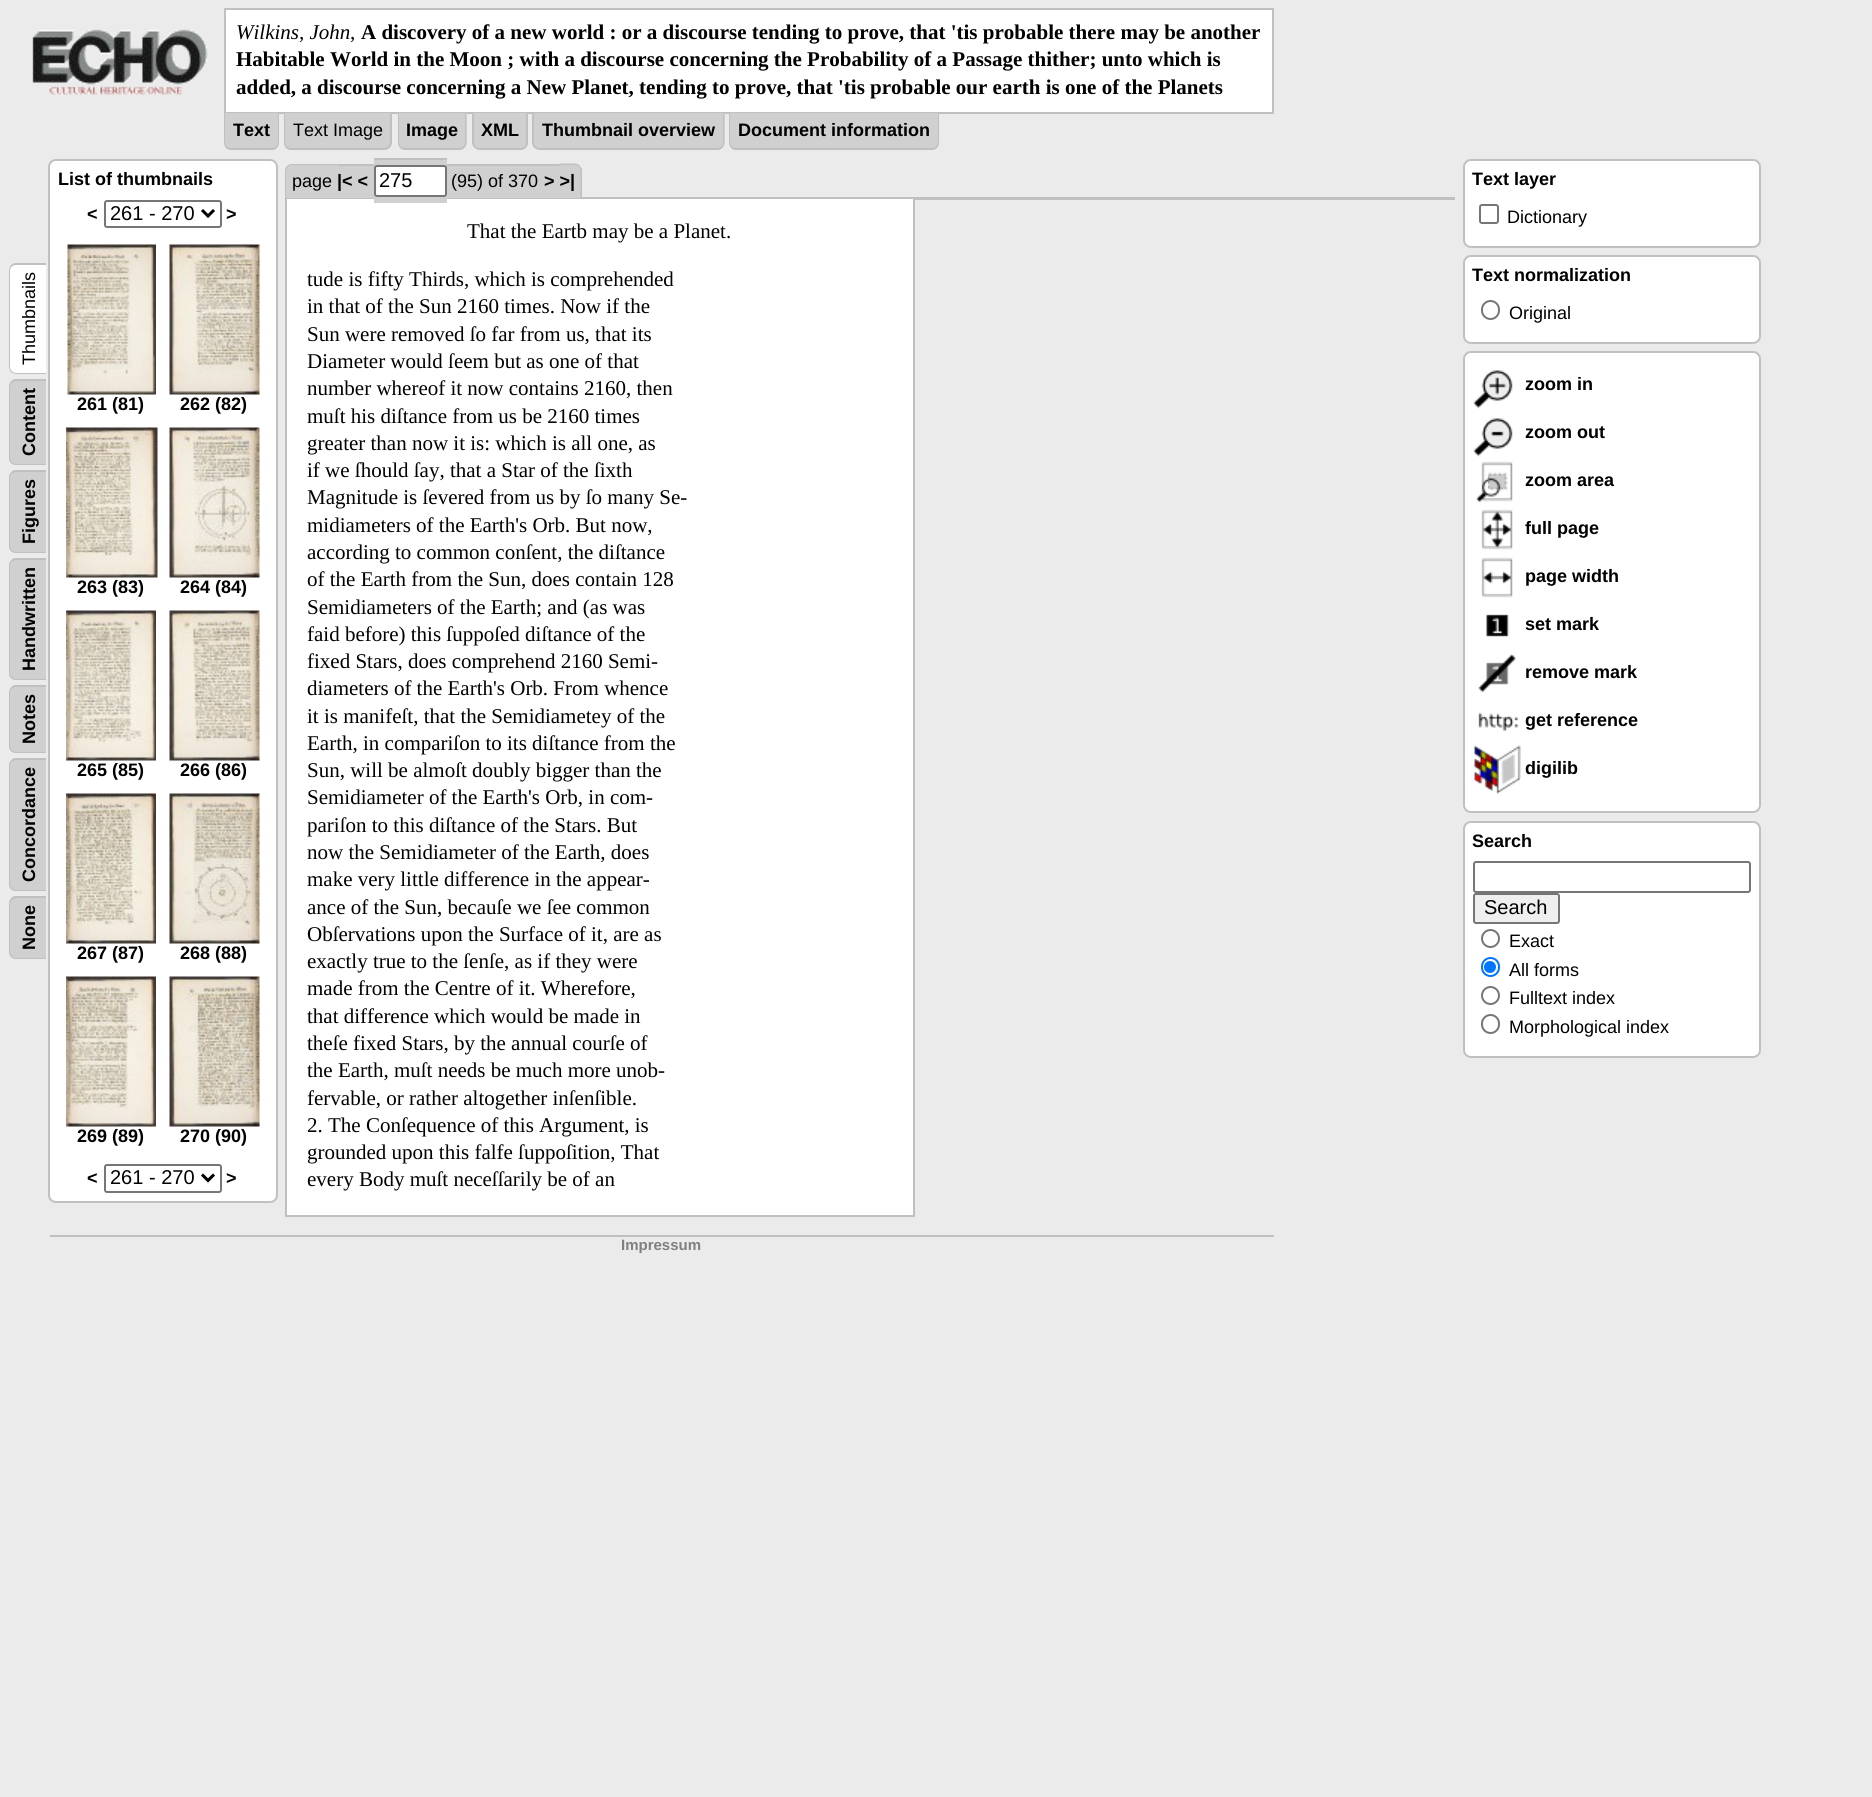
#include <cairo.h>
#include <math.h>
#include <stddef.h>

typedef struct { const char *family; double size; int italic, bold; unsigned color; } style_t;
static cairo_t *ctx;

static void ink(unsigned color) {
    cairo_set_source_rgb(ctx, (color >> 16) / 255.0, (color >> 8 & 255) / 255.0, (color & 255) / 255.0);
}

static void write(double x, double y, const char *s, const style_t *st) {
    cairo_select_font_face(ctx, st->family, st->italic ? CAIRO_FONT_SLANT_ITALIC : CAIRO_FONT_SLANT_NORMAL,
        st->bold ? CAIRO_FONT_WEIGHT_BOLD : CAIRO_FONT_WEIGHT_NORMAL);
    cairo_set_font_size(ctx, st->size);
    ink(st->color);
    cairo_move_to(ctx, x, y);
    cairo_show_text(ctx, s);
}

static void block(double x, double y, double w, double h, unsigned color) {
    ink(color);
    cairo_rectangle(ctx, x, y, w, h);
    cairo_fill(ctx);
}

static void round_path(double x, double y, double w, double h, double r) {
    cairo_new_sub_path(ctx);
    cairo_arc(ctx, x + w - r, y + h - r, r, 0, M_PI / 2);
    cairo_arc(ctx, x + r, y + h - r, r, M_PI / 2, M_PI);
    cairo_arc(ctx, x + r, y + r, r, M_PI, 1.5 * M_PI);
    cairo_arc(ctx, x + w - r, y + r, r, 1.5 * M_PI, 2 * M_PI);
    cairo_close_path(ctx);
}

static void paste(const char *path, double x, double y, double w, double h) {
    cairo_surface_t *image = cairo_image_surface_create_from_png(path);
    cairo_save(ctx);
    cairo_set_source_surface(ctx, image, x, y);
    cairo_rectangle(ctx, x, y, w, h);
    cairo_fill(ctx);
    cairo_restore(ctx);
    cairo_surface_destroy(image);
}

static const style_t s1 = {"Liberation Serif", 21, 1, 0, 0x000000};
static const style_t s2 = {"Liberation Serif", 21, 0, 0, 0x000000};
static const style_t s3 = {"Liberation Serif", 21, 0, 1, 0x000000};
static const style_t s4 = {"Liberation Sans", 18, 0, 1, 0x000000};
static const style_t s5 = {"Liberation Sans", 18, 0, 0, 0x000000};
static const style_t s6 = {"Liberation Sans", 20, 0, 0, 0x000000};
static const style_t s7 = {"Liberation Sans", 15, 0, 1, 0x808080};

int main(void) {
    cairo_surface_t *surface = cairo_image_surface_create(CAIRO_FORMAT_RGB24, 1872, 1797);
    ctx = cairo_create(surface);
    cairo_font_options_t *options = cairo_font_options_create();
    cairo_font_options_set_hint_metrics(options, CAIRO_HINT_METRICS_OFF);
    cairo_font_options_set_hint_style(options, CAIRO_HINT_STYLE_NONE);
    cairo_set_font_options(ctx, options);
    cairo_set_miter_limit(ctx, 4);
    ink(0xebebeb);
    cairo_paint(ctx);
    paste("pic1.png", 32, 29, 176, 66);
    ink(0xffffff);
    cairo_rectangle(ctx, 225, 9, 1048, 104);
    cairo_fill_preserve(ctx);
    ink(0xc0c0c0);
    cairo_stroke(ctx);
    write(236, 39, "Wilkins, John", &s1);
    write(350, 39, ",", &s2);
    write(361, 39, "A discovery of a new world : or a discourse tending to prove, that 'tis probable there may be another", &s3);
    write(236, 66, "Habitable World in the Moon ; with a discourse concerning the Probability of a Passage thither; unto which is", &s3);
    write(236, 94, "added, a discourse concerning a New Planet, tending to prove, that 'tis probable our earth is one of the Planets", &s3);
    ink(0xd0d0d0);
    cairo_new_path(ctx);
    cairo_move_to(ctx, 224, 113);
    cairo_line_to(ctx, 279, 113);
    cairo_line_to(ctx, 279, 142);
    cairo_curve_to(ctx, 279, 146.5, 275.5, 150, 271, 150);
    cairo_line_to(ctx, 232, 150);
    cairo_curve_to(ctx, 227.5, 150, 224, 146.5, 224, 142);
    cairo_close_path(ctx);
    cairo_fill(ctx);
    ink(0xc0c0c0);
    cairo_set_fill_rule(ctx, CAIRO_FILL_RULE_EVEN_ODD);
    cairo_new_path(ctx);
    cairo_move_to(ctx, 224, 112);
    cairo_line_to(ctx, 279, 112);
    cairo_line_to(ctx, 279, 142);
    cairo_curve_to(ctx, 279, 147, 276, 150, 272, 150);
    cairo_line_to(ctx, 231, 150);
    cairo_curve_to(ctx, 227, 150, 224, 147, 224, 142);
    cairo_close_path(ctx);
    cairo_move_to(ctx, 225, 112);
    cairo_line_to(ctx, 278, 112);
    cairo_line_to(ctx, 278, 142);
    cairo_curve_to(ctx, 278, 146, 275, 148, 272, 148);
    cairo_line_to(ctx, 231, 148);
    cairo_curve_to(ctx, 228, 148, 225, 146, 225, 142);
    cairo_close_path(ctx);
    cairo_fill(ctx);
    write(233, 136, "Text", &s4);
    ink(0xd0d0d0);
    cairo_new_path(ctx);
    cairo_move_to(ctx, 284, 113);
    cairo_line_to(ctx, 392, 113);
    cairo_line_to(ctx, 392, 142);
    cairo_curve_to(ctx, 392, 146.5, 388.5, 150, 384, 150);
    cairo_line_to(ctx, 292, 150);
    cairo_curve_to(ctx, 287.5, 150, 284, 146.5, 284, 142);
    cairo_close_path(ctx);
    cairo_fill(ctx);
    ink(0xc0c0c0);
    cairo_new_path(ctx);
    cairo_move_to(ctx, 284, 112);
    cairo_line_to(ctx, 392, 112);
    cairo_line_to(ctx, 392, 142);
    cairo_curve_to(ctx, 392, 147, 388, 150, 384, 150);
    cairo_line_to(ctx, 291, 150);
    cairo_curve_to(ctx, 287, 150, 284, 147, 284, 142);
    cairo_close_path(ctx);
    cairo_move_to(ctx, 285, 112);
    cairo_line_to(ctx, 390, 112);
    cairo_line_to(ctx, 390, 142);
    cairo_curve_to(ctx, 390, 146, 387, 148, 384, 148);
    cairo_line_to(ctx, 291, 148);
    cairo_curve_to(ctx, 288, 148, 285, 146, 285, 142);
    cairo_close_path(ctx);
    cairo_fill(ctx);
    write(293, 136, "Text Image", &s5);
    ink(0xd0d0d0);
    cairo_new_path(ctx);
    cairo_move_to(ctx, 398, 113);
    cairo_line_to(ctx, 467, 113);
    cairo_line_to(ctx, 467, 142);
    cairo_curve_to(ctx, 467, 146.5, 463.5, 150, 459, 150);
    cairo_line_to(ctx, 406, 150);
    cairo_curve_to(ctx, 401.5, 150, 398, 146.5, 398, 142);
    cairo_close_path(ctx);
    cairo_fill(ctx);
    ink(0xc0c0c0);
    cairo_new_path(ctx);
    cairo_move_to(ctx, 398, 112);
    cairo_line_to(ctx, 466, 112);
    cairo_line_to(ctx, 466, 142);
    cairo_curve_to(ctx, 466, 147, 463, 150, 459, 150);
    cairo_line_to(ctx, 405, 150);
    cairo_curve_to(ctx, 401, 150, 398, 147, 398, 142);
    cairo_close_path(ctx);
    cairo_move_to(ctx, 399, 112);
    cairo_line_to(ctx, 465, 112);
    cairo_line_to(ctx, 465, 142);
    cairo_curve_to(ctx, 465, 146, 462, 148, 459, 148);
    cairo_line_to(ctx, 405, 148);
    cairo_curve_to(ctx, 402, 148, 399, 146, 399, 142);
    cairo_close_path(ctx);
    cairo_fill(ctx);
    write(406, 136, "Image", &s4);
    ink(0xd0d0d0);
    cairo_new_path(ctx);
    cairo_move_to(ctx, 473, 113);
    cairo_line_to(ctx, 528, 113);
    cairo_line_to(ctx, 528, 142);
    cairo_curve_to(ctx, 528, 146.5, 524.5, 150, 520, 150);
    cairo_line_to(ctx, 481, 150);
    cairo_curve_to(ctx, 476.5, 150, 473, 146.5, 473, 142);
    cairo_close_path(ctx);
    cairo_fill(ctx);
    ink(0xc0c0c0);
    cairo_new_path(ctx);
    cairo_move_to(ctx, 472, 112);
    cairo_line_to(ctx, 528, 112);
    cairo_line_to(ctx, 528, 142);
    cairo_curve_to(ctx, 528, 147, 525, 150, 520, 150);
    cairo_line_to(ctx, 480, 150);
    cairo_curve_to(ctx, 476, 150, 472, 147, 472, 142);
    cairo_close_path(ctx);
    cairo_move_to(ctx, 474, 112);
    cairo_line_to(ctx, 526, 112);
    cairo_line_to(ctx, 526, 142);
    cairo_curve_to(ctx, 526, 146, 524, 148, 520, 148);
    cairo_line_to(ctx, 480, 148);
    cairo_curve_to(ctx, 477, 148, 474, 146, 474, 142);
    cairo_close_path(ctx);
    cairo_fill(ctx);
    write(481, 136, "XML", &s4);
    ink(0xd0d0d0);
    cairo_new_path(ctx);
    cairo_move_to(ctx, 533, 113);
    cairo_line_to(ctx, 725, 113);
    cairo_line_to(ctx, 725, 142);
    cairo_curve_to(ctx, 725, 146.5, 721.5, 150, 717, 150);
    cairo_line_to(ctx, 541, 150);
    cairo_curve_to(ctx, 536.5, 150, 533, 146.5, 533, 142);
    cairo_close_path(ctx);
    cairo_fill(ctx);
    ink(0xc0c0c0);
    cairo_new_path(ctx);
    cairo_move_to(ctx, 532, 112);
    cairo_line_to(ctx, 724, 112);
    cairo_line_to(ctx, 724, 142);
    cairo_curve_to(ctx, 724, 147, 721, 150, 717, 150);
    cairo_line_to(ctx, 540, 150);
    cairo_curve_to(ctx, 536, 150, 532, 147, 532, 142);
    cairo_close_path(ctx);
    cairo_move_to(ctx, 534, 112);
    cairo_line_to(ctx, 723, 112);
    cairo_line_to(ctx, 723, 142);
    cairo_curve_to(ctx, 723, 146, 720, 148, 717, 148);
    cairo_line_to(ctx, 540, 148);
    cairo_curve_to(ctx, 537, 148, 534, 146, 534, 142);
    cairo_close_path(ctx);
    cairo_fill(ctx);
    write(542, 136, "Thumbnail overview", &s4);
    ink(0xd0d0d0);
    cairo_new_path(ctx);
    cairo_move_to(ctx, 729, 113);
    cairo_line_to(ctx, 939, 113);
    cairo_line_to(ctx, 939, 142);
    cairo_curve_to(ctx, 939, 146.5, 935.5, 150, 931, 150);
    cairo_line_to(ctx, 737, 150);
    cairo_curve_to(ctx, 732.5, 150, 729, 146.5, 729, 142);
    cairo_close_path(ctx);
    cairo_fill(ctx);
    ink(0xc0c0c0);
    cairo_new_path(ctx);
    cairo_move_to(ctx, 729, 112);
    cairo_line_to(ctx, 939, 112);
    cairo_line_to(ctx, 939, 142);
    cairo_curve_to(ctx, 939, 147, 936, 150, 932, 150);
    cairo_line_to(ctx, 736, 150);
    cairo_curve_to(ctx, 732, 150, 729, 147, 729, 142);
    cairo_close_path(ctx);
    cairo_move_to(ctx, 730, 112);
    cairo_line_to(ctx, 938, 112);
    cairo_line_to(ctx, 938, 142);
    cairo_curve_to(ctx, 938, 146, 935, 148, 932, 148);
    cairo_line_to(ctx, 736, 148);
    cairo_curve_to(ctx, 733, 148, 730, 146, 730, 142);
    cairo_close_path(ctx);
    cairo_fill(ctx);
    write(738, 136, "Document information", &s4);
    ink(0xffffff);
    cairo_set_fill_rule(ctx, CAIRO_FILL_RULE_WINDING);
    cairo_new_path(ctx);
    cairo_move_to(ctx, 9, 367);
    cairo_line_to(ctx, 9, 271);
    cairo_curve_to(ctx, 9, 266, 12, 263, 16, 263);
    cairo_line_to(ctx, 46, 263);
    cairo_line_to(ctx, 46, 374);
    cairo_line_to(ctx, 16, 374);
    cairo_curve_to(ctx, 12, 374, 9, 371, 9, 367);
    cairo_close_path(ctx);
    cairo_fill(ctx);
    ink(0xc0c0c0);
    cairo_set_fill_rule(ctx, CAIRO_FILL_RULE_EVEN_ODD);
    cairo_new_path(ctx);
    cairo_move_to(ctx, 9, 367);
    cairo_line_to(ctx, 9, 271);
    cairo_curve_to(ctx, 9, 266, 12, 263, 16, 263);
    cairo_line_to(ctx, 46, 263);
    cairo_line_to(ctx, 46, 374);
    cairo_line_to(ctx, 16, 374);
    cairo_curve_to(ctx, 12, 374, 9, 371, 9, 367);
    cairo_close_path(ctx);
    cairo_move_to(ctx, 10, 367);
    cairo_line_to(ctx, 10, 271);
    cairo_curve_to(ctx, 10, 267, 13, 265, 16, 265);
    cairo_line_to(ctx, 46, 265);
    cairo_line_to(ctx, 46, 373);
    cairo_line_to(ctx, 16, 373);
    cairo_curve_to(ctx, 13, 373, 10, 370, 10, 367);
    cairo_close_path(ctx);
    cairo_fill(ctx);
    cairo_save(ctx);
    cairo_translate(ctx, 35, 365);
    cairo_rotate(ctx, -90 * M_PI / 180);
    write(0, 0, "Thumbnails", &s5);
    cairo_restore(ctx);
    ink(0xd0d0d0);
    cairo_set_fill_rule(ctx, CAIRO_FILL_RULE_WINDING);
    cairo_new_path(ctx);
    cairo_move_to(ctx, 9, 458);
    cairo_line_to(ctx, 9, 387);
    cairo_curve_to(ctx, 9, 383, 12, 379, 16, 379);
    cairo_line_to(ctx, 46, 379);
    cairo_line_to(ctx, 46, 465);
    cairo_line_to(ctx, 16, 465);
    cairo_curve_to(ctx, 12, 465, 9, 462, 9, 458);
    cairo_close_path(ctx);
    cairo_fill(ctx);
    ink(0xc0c0c0);
    cairo_set_fill_rule(ctx, CAIRO_FILL_RULE_EVEN_ODD);
    cairo_new_path(ctx);
    cairo_move_to(ctx, 9, 458);
    cairo_line_to(ctx, 9, 387);
    cairo_curve_to(ctx, 9, 383, 12, 379, 16, 379);
    cairo_line_to(ctx, 46, 379);
    cairo_line_to(ctx, 46, 465);
    cairo_line_to(ctx, 16, 465);
    cairo_curve_to(ctx, 12, 465, 9, 462, 9, 458);
    cairo_close_path(ctx);
    cairo_move_to(ctx, 10, 458);
    cairo_line_to(ctx, 10, 387);
    cairo_curve_to(ctx, 10, 383, 13, 381, 16, 381);
    cairo_line_to(ctx, 46, 381);
    cairo_line_to(ctx, 46, 464);
    cairo_line_to(ctx, 16, 464);
    cairo_curve_to(ctx, 13, 464, 10, 461, 10, 458);
    cairo_close_path(ctx);
    cairo_fill(ctx);
    cairo_save(ctx);
    cairo_translate(ctx, 35, 456);
    cairo_rotate(ctx, -90 * M_PI / 180);
    write(0, 0, "Content", &s4);
    cairo_restore(ctx);
    ink(0xd0d0d0);
    cairo_set_fill_rule(ctx, CAIRO_FILL_RULE_WINDING);
    cairo_new_path(ctx);
    cairo_move_to(ctx, 9, 546);
    cairo_line_to(ctx, 9, 478);
    cairo_curve_to(ctx, 9, 474, 12, 470, 16, 470);
    cairo_line_to(ctx, 46, 470);
    cairo_line_to(ctx, 46, 553);
    cairo_line_to(ctx, 16, 553);
    cairo_curve_to(ctx, 12, 553, 9, 550, 9, 546);
    cairo_close_path(ctx);
    cairo_fill(ctx);
    ink(0xc0c0c0);
    cairo_set_fill_rule(ctx, CAIRO_FILL_RULE_EVEN_ODD);
    cairo_new_path(ctx);
    cairo_move_to(ctx, 9, 546);
    cairo_line_to(ctx, 9, 478);
    cairo_curve_to(ctx, 9, 474, 12, 470, 16, 470);
    cairo_line_to(ctx, 46, 470);
    cairo_line_to(ctx, 46, 553);
    cairo_line_to(ctx, 16, 553);
    cairo_curve_to(ctx, 12, 553, 9, 550, 9, 546);
    cairo_close_path(ctx);
    cairo_move_to(ctx, 10, 546);
    cairo_line_to(ctx, 10, 478);
    cairo_curve_to(ctx, 10, 474, 13, 472, 16, 472);
    cairo_line_to(ctx, 46, 472);
    cairo_line_to(ctx, 46, 552);
    cairo_line_to(ctx, 16, 552);
    cairo_curve_to(ctx, 13, 552, 10, 549, 10, 546);
    cairo_close_path(ctx);
    cairo_fill(ctx);
    cairo_save(ctx);
    cairo_translate(ctx, 35, 544);
    cairo_rotate(ctx, -90 * M_PI / 180);
    write(0, 0, "Figures", &s4);
    cairo_restore(ctx);
    ink(0xd0d0d0);
    cairo_set_fill_rule(ctx, CAIRO_FILL_RULE_WINDING);
    cairo_new_path(ctx);
    cairo_move_to(ctx, 9, 673);
    cairo_line_to(ctx, 9, 566);
    cairo_curve_to(ctx, 9, 562, 12, 558, 16, 558);
    cairo_line_to(ctx, 46, 558);
    cairo_line_to(ctx, 46, 680);
    cairo_line_to(ctx, 16, 680);
    cairo_curve_to(ctx, 12, 680, 9, 677, 9, 673);
    cairo_close_path(ctx);
    cairo_fill(ctx);
    ink(0xc0c0c0);
    cairo_set_fill_rule(ctx, CAIRO_FILL_RULE_EVEN_ODD);
    cairo_new_path(ctx);
    cairo_move_to(ctx, 9, 673);
    cairo_line_to(ctx, 9, 566);
    cairo_curve_to(ctx, 9, 562, 12, 558, 16, 558);
    cairo_line_to(ctx, 46, 558);
    cairo_line_to(ctx, 46, 680);
    cairo_line_to(ctx, 16, 680);
    cairo_curve_to(ctx, 12, 680, 9, 677, 9, 673);
    cairo_close_path(ctx);
    cairo_move_to(ctx, 10, 673);
    cairo_line_to(ctx, 10, 566);
    cairo_curve_to(ctx, 10, 562, 13, 560, 16, 560);
    cairo_line_to(ctx, 46, 560);
    cairo_line_to(ctx, 46, 679);
    cairo_line_to(ctx, 16, 679);
    cairo_curve_to(ctx, 13, 679, 10, 676, 10, 673);
    cairo_close_path(ctx);
    cairo_fill(ctx);
    cairo_save(ctx);
    cairo_translate(ctx, 35, 671);
    cairo_rotate(ctx, -90 * M_PI / 180);
    write(0, 0, "Handwritten", &s4);
    cairo_restore(ctx);
    ink(0xd0d0d0);
    cairo_set_fill_rule(ctx, CAIRO_FILL_RULE_WINDING);
    cairo_new_path(ctx);
    cairo_move_to(ctx, 9, 746);
    cairo_line_to(ctx, 9, 693);
    cairo_curve_to(ctx, 9, 689, 12, 685, 16, 685);
    cairo_line_to(ctx, 46, 685);
    cairo_line_to(ctx, 46, 753);
    cairo_line_to(ctx, 16, 753);
    cairo_curve_to(ctx, 12, 753, 9, 750, 9, 746);
    cairo_close_path(ctx);
    cairo_fill(ctx);
    ink(0xc0c0c0);
    cairo_set_fill_rule(ctx, CAIRO_FILL_RULE_EVEN_ODD);
    cairo_new_path(ctx);
    cairo_move_to(ctx, 9, 746);
    cairo_line_to(ctx, 9, 693);
    cairo_curve_to(ctx, 9, 689, 12, 685, 16, 685);
    cairo_line_to(ctx, 46, 685);
    cairo_line_to(ctx, 46, 753);
    cairo_line_to(ctx, 16, 753);
    cairo_curve_to(ctx, 12, 753, 9, 750, 9, 746);
    cairo_close_path(ctx);
    cairo_move_to(ctx, 10, 746);
    cairo_line_to(ctx, 10, 693);
    cairo_curve_to(ctx, 10, 689, 13, 687, 16, 687);
    cairo_line_to(ctx, 46, 687);
    cairo_line_to(ctx, 46, 752);
    cairo_line_to(ctx, 16, 752);
    cairo_curve_to(ctx, 13, 752, 10, 749, 10, 746);
    cairo_close_path(ctx);
    cairo_fill(ctx);
    cairo_save(ctx);
    cairo_translate(ctx, 35, 744);
    cairo_rotate(ctx, -90 * M_PI / 180);
    write(0, 0, "Notes", &s4);
    cairo_restore(ctx);
    ink(0xd0d0d0);
    cairo_set_fill_rule(ctx, CAIRO_FILL_RULE_WINDING);
    cairo_new_path(ctx);
    cairo_move_to(ctx, 9, 884);
    cairo_line_to(ctx, 9, 766);
    cairo_curve_to(ctx, 9, 762, 12, 758, 16, 758);
    cairo_line_to(ctx, 46, 758);
    cairo_line_to(ctx, 46, 891);
    cairo_line_to(ctx, 16, 891);
    cairo_curve_to(ctx, 12, 891, 9, 888, 9, 884);
    cairo_close_path(ctx);
    cairo_fill(ctx);
    ink(0xc0c0c0);
    cairo_set_fill_rule(ctx, CAIRO_FILL_RULE_EVEN_ODD);
    cairo_new_path(ctx);
    cairo_move_to(ctx, 9, 884);
    cairo_line_to(ctx, 9, 766);
    cairo_curve_to(ctx, 9, 762, 12, 758, 16, 758);
    cairo_line_to(ctx, 46, 758);
    cairo_line_to(ctx, 46, 891);
    cairo_line_to(ctx, 16, 891);
    cairo_curve_to(ctx, 12, 891, 9, 888, 9, 884);
    cairo_close_path(ctx);
    cairo_move_to(ctx, 10, 884);
    cairo_line_to(ctx, 10, 766);
    cairo_curve_to(ctx, 10, 762, 13, 760, 16, 760);
    cairo_line_to(ctx, 46, 760);
    cairo_line_to(ctx, 46, 890);
    cairo_line_to(ctx, 16, 890);
    cairo_curve_to(ctx, 13, 890, 10, 887, 10, 884);
    cairo_close_path(ctx);
    cairo_fill(ctx);
    cairo_save(ctx);
    cairo_translate(ctx, 35, 882);
    cairo_rotate(ctx, -90 * M_PI / 180);
    write(0, 0, "Concordance", &s4);
    cairo_restore(ctx);
    ink(0xd0d0d0);
    cairo_set_fill_rule(ctx, CAIRO_FILL_RULE_WINDING);
    cairo_new_path(ctx);
    cairo_move_to(ctx, 9, 952);
    cairo_line_to(ctx, 9, 904);
    cairo_curve_to(ctx, 9, 900, 12, 896, 16, 896);
    cairo_line_to(ctx, 46, 896);
    cairo_line_to(ctx, 46, 959);
    cairo_line_to(ctx, 16, 959);
    cairo_curve_to(ctx, 12, 959, 9, 956, 9, 952);
    cairo_close_path(ctx);
    cairo_fill(ctx);
    ink(0xc0c0c0);
    cairo_set_fill_rule(ctx, CAIRO_FILL_RULE_EVEN_ODD);
    cairo_new_path(ctx);
    cairo_move_to(ctx, 9, 952);
    cairo_line_to(ctx, 9, 904);
    cairo_curve_to(ctx, 9, 900, 12, 896, 16, 896);
    cairo_line_to(ctx, 46, 896);
    cairo_line_to(ctx, 46, 959);
    cairo_line_to(ctx, 16, 959);
    cairo_curve_to(ctx, 12, 959, 9, 956, 9, 952);
    cairo_close_path(ctx);
    cairo_move_to(ctx, 10, 952);
    cairo_line_to(ctx, 10, 904);
    cairo_curve_to(ctx, 10, 901, 13, 898, 16, 898);
    cairo_line_to(ctx, 46, 898);
    cairo_line_to(ctx, 46, 958);
    cairo_line_to(ctx, 16, 958);
    cairo_curve_to(ctx, 13, 958, 10, 955, 10, 952);
    cairo_close_path(ctx);
    cairo_fill(ctx);
    cairo_save(ctx);
    cairo_translate(ctx, 35, 950);
    cairo_rotate(ctx, -90 * M_PI / 180);
    write(0, 0, "None", &s4);
    cairo_restore(ctx);
    ink(0xffffff);
    round_path(49, 160, 228, 1042, 7);
    cairo_fill_preserve(ctx);
    ink(0xc0c0c0);
    cairo_stroke(ctx);
    write(58, 185, "List of thumbnails", &s4);
    write(87, 220, "<", &s4);
    round_path(105, 201, 116, 26, 2);
    ink(0x767676);
    cairo_stroke(ctx);
    cairo_new_path(ctx);
    cairo_move_to(ctx, 202, 210);
    cairo_line_to(ctx, 208, 216);
    cairo_line_to(ctx, 214, 210);
    ink(0x000000);
    cairo_set_line_width(ctx, 3);
    cairo_stroke(ctx);
    write(110, 220, "261 - 270", &s6);
    write(226, 220, ">", &s4);
    paste("pic2.png", 67, 244, 89, 151);
    write(77, 410, "261 (81)", &s4);
    paste("pic3.png", 169, 244, 91, 151);
    write(180, 410, "262 (82)", &s4);
    paste("pic4.png", 66, 427, 92, 151);
    write(77, 593, "263 (83)", &s4);
    paste("pic5.png", 169, 427, 91, 151);
    write(180, 593, "264 (84)", &s4);
    paste("pic6.png", 66, 610, 90, 151);
    write(77, 776, "265 (85)", &s4);
    paste("pic7.png", 169, 610, 91, 151);
    write(180, 776, "266 (86)", &s4);
    paste("pic8.png", 66, 793, 90, 151);
    write(77, 959, "267 (87)", &s4);
    paste("pic9.png", 169, 793, 91, 151);
    write(180, 959, "268 (88)", &s4);
    paste("pic10.png", 66, 976, 90, 151);
    write(77, 1142, "269 (89)", &s4);
    paste("pic11.png", 169, 976, 91, 151);
    write(180, 1142, "270 (90)", &s4);
    write(87, 1184, "<", &s4);
    round_path(105, 1165, 116, 27, 2);
    ink(0x767676);
    cairo_set_line_width(ctx, 2);
    cairo_stroke(ctx);
    cairo_new_path(ctx);
    cairo_move_to(ctx, 202, 1174.5);
    cairo_line_to(ctx, 208, 1180.5);
    cairo_line_to(ctx, 214, 1174.5);
    ink(0x000000);
    cairo_set_line_width(ctx, 3);
    cairo_stroke(ctx);
    write(110, 1184, "261 - 270", &s6);
    write(226, 1184, ">", &s4);
    ink(0xffffff);
    cairo_rectangle(ctx, 286, 198, 628, 1018);
    cairo_fill_preserve(ctx);
    ink(0xc0c0c0);
    cairo_set_line_width(ctx, 2);
    cairo_stroke(ctx);
    ink(0xd0d0d0);
    cairo_new_path(ctx);
    cairo_move_to(ctx, 293, 164);
    cairo_line_to(ctx, 338, 164);
    cairo_line_to(ctx, 338, 198);
    cairo_line_to(ctx, 285, 198);
    cairo_line_to(ctx, 285, 172);
    cairo_curve_to(ctx, 285, 167.5, 288.5, 164, 293, 164);
    cairo_close_path(ctx);
    cairo_fill(ctx);
    ink(0xc0c0c0);
    cairo_new_path(ctx);
    cairo_move_to(ctx, 292, 164);
    cairo_line_to(ctx, 338, 164);
    cairo_line_to(ctx, 338, 198);
    cairo_line_to(ctx, 285, 198);
    cairo_line_to(ctx, 285, 171);
    cairo_curve_to(ctx, 285, 167, 288, 164, 292, 164);
    cairo_close_path(ctx);
    cairo_move_to(ctx, 292, 165);
    cairo_line_to(ctx, 338, 165);
    cairo_line_to(ctx, 338, 198);
    cairo_line_to(ctx, 286, 198);
    cairo_line_to(ctx, 286, 171);
    cairo_curve_to(ctx, 286, 168, 289, 165, 292, 165);
    cairo_close_path(ctx);
    cairo_fill(ctx);
    block(338, 166, 15, 32, 0xd0d0d0);
    block(338, 164, 15, 2, 0xc0c0c0);
    block(353, 164, 4, 34, 0xd0d0d0);
    block(353, 164, 15, 2, 0xc0c0c0);
    block(357, 166, 11, 32, 0xd0d0d0);
    block(368, 164, 6, 34, 0xd0d0d0);
    block(368, 164, 6, 2, 0xc0c0c0);
    block(374, 160, 73, 43, 0xd0d0d0);
    block(374, 158, 73, 2, 0xc0c0c0);
    block(447, 164, 5, 34, 0xd0d0d0);
    block(447, 164, 107, 2, 0xc0c0c0);
    block(452, 166, 102, 32, 0xd0d0d0);
    block(554, 164, 6, 34, 0xd0d0d0);
    block(554, 164, 6, 2, 0xc0c0c0);
    ink(0xd0d0d0);
    cairo_new_path(ctx);
    cairo_move_to(ctx, 560, 164);
    cairo_line_to(ctx, 574, 164);
    cairo_curve_to(ctx, 578.5, 164, 582, 167.5, 582, 172);
    cairo_line_to(ctx, 582, 198);
    cairo_line_to(ctx, 560, 198);
    cairo_close_path(ctx);
    cairo_fill(ctx);
    ink(0xc0c0c0);
    cairo_new_path(ctx);
    cairo_move_to(ctx, 559.5, 163.5);
    cairo_line_to(ctx, 574.5, 163.5);
    cairo_curve_to(ctx, 578.5, 163.5, 582, 167, 582, 171);
    cairo_line_to(ctx, 582, 198);
    cairo_line_to(ctx, 559.5, 198);
    cairo_close_path(ctx);
    cairo_move_to(ctx, 559.5, 165);
    cairo_line_to(ctx, 574.5, 165);
    cairo_curve_to(ctx, 578, 165, 580.5, 167.5, 580.5, 171);
    cairo_line_to(ctx, 580.5, 198);
    cairo_line_to(ctx, 559.5, 198);
    cairo_close_path(ctx);
    cairo_fill(ctx);
    write(292, 187, "page", &s5);
    write(337, 187, "|< <", &s4);
    ink(0xffffff);
    round_path(375, 166, 71, 30, 2);
    cairo_fill_preserve(ctx);
    ink(0x767676);
    cairo_stroke(ctx);
    write(379, 187, "275", &s6);
    write(451, 187, "(95) of 370", &s5);
    write(544, 187, "> >|", &s4);
    block(915, 197, 540, 3, 0xc0c0c0);
    write(467, 238, "That the Eartb may be a Planet.", &s2);
    write(307, 286, "tude is fifty Thirds, which is comprehended", &s2);
    write(307, 313, "in that of the Sun 2160 times. Now if the", &s2);
    write(307, 341, "Sun were removed ſo far from us, that its", &s2);
    write(307, 368, "Diameter would ſeem but as one of that", &s2);
    write(307, 395, "number whereof it now contains 2160, then", &s2);
    write(307, 423, "muſt his diſtance from us be 2160 times", &s2);
    write(307, 450, "greater than now it is: which is all one, as", &s2);
    write(307, 477, "if we ſhould ſay, that a Star of the ſixth", &s2);
    write(307, 504, "Magnitude is ſevered from us by ſo many Se-", &s2);
    write(307, 532, "midiameters of the Earth's Orb. But now,", &s2);
    write(307, 559, "according to common conſent, the diſtance", &s2);
    write(307, 586, "of the Earth from the Sun, does contain 128", &s2);
    write(307, 614, "Semidiameters of the Earth; and (as was", &s2);
    write(307, 641, "faid before) this ſuppoſed diſtance of the", &s2);
    write(307, 668, "fixed Stars, does comprehend 2160 Semi-", &s2);
    write(307, 695, "diameters of the Earth's Orb. From whence", &s2);
    write(307, 723, "it is manifeſt, that the Semidiametey of the", &s2);
    write(307, 750, "Earth, in compariſon to its diſtance from the", &s2);
    write(307, 777, "Sun, will be almoſt doubly bigger than the", &s2);
    write(307, 804, "Semidiameter of the Earth's Orb, in com-", &s2);
    write(307, 832, "pariſon to this diſtance of the Stars. But", &s2);
    write(307, 859, "now the Semidiameter of the Earth, does", &s2);
    write(307, 886, "make very little difference in the appear-", &s2);
    write(307, 914, "ance of the Sun, becauſe we ſee common", &s2);
    write(307, 941, "Obſervations upon the Surface of it, are as", &s2);
    write(307, 968, "exactly true to the ſenſe, as if they were", &s2);
    write(307, 995, "made from the Centre of it. Wherefore,", &s2);
    write(307, 1023, "that difference which would be made in", &s2);
    write(307, 1050, "theſe fixed Stars, by the annual courſe of", &s2);
    write(307, 1077, "the Earth, muſt needs be much more unob-", &s2);
    write(307, 1105, "fervable, or rather altogether inſenſible.", &s2);
    write(307, 1132, "2. The Conſequence of this Argument, is", &s2);
    write(307, 1159, "grounded upon this falfe ſuppoſition, That", &s2);
    write(307, 1186, "every Body muſt neceſſarily be of an", &s2);
    ink(0xffffff);
    round_path(1464, 160, 296, 87, 7);
    cairo_fill_preserve(ctx);
    ink(0xc0c0c0);
    cairo_stroke(ctx);
    write(1472, 185, "Text layer", &s4);
    round_path(1480, 205, 18, 18, 2);
    ink(0x767676);
    cairo_stroke(ctx);
    write(1507, 223, "Dictionary", &s5);
    ink(0xffffff);
    round_path(1464, 256, 296, 87, 7);
    cairo_fill_preserve(ctx);
    ink(0xc0c0c0);
    cairo_stroke(ctx);
    write(1472, 281, "Text normalization", &s4);
    round_path(1482, 301, 17, 18, 8.5);
    ink(0x767676);
    cairo_stroke(ctx);
    write(1509, 319, "Original", &s5);
    ink(0xffffff);
    round_path(1464, 352, 296, 460, 7);
    cairo_fill_preserve(ctx);
    ink(0xc0c0c0);
    cairo_stroke(ctx);
    paste("pic12.png", 1473, 370, 40, 39);
    write(1525, 390, "zoom in", &s4);
    paste("pic13.png", 1473, 418, 40, 39);
    write(1525, 438, "zoom out", &s4);
    paste("pic14.png", 1476, 461, 37, 42);
    write(1525, 486, "zoom area", &s4);
    paste("pic15.png", 1481, 509, 32, 41);
    write(1525, 534, "full page", &s4);
    paste("pic16.png", 1481, 557, 32, 41);
    write(1525, 582, "page width", &s4);
    paste("pic17.png", 1486, 614, 24, 23);
    write(1525, 630, "set mark", &s4);
    paste("pic18.png", 1478, 654, 38, 38);
    write(1525, 678, "remove mark", &s4);
    paste("pic19.png", 1478, 712, 41, 19);
    write(1525, 726, "get reference", &s4);
    paste("pic20.png", 1474, 745, 47, 49);
    write(1525, 774, "digilib", &s4);
    ink(0xffffff);
    round_path(1464, 822, 296, 235, 7);
    cairo_fill_preserve(ctx);
    ink(0xc0c0c0);
    cairo_stroke(ctx);
    write(1472, 847, "Search", &s4);
    round_path(1474, 862, 276, 30, 2);
    ink(0x767676);
    cairo_stroke(ctx);
    ink(0xefefef);
    round_path(1474, 894, 85, 29, 2);
    cairo_fill_preserve(ctx);
    ink(0x767676);
    cairo_stroke(ctx);
    write(1484, 914, "Search", &s6);
    cairo_new_path(ctx);
    cairo_arc(ctx, 1490.5, 938.5, 8.5, 0, 2 * M_PI);
    ink(0x767676);
    cairo_stroke(ctx);
    write(1509, 947, "Exact", &s5);
    round_path(1482, 958, 17, 18, 8.5);
    ink(0x0075ff);
    cairo_stroke(ctx);
    cairo_arc(ctx, 1490, 967, 6, 0, 2 * M_PI);
    cairo_fill(ctx);
    write(1509, 976, "All forms", &s5);
    cairo_new_path(ctx);
    cairo_arc(ctx, 1490.5, 995.5, 8.5, 0, 2 * M_PI);
    ink(0x767676);
    cairo_stroke(ctx);
    write(1509, 1004, "Fulltext index", &s5);
    round_path(1482, 1015, 17, 18, 8.5);
    ink(0x767676);
    cairo_stroke(ctx);
    write(1509, 1033, "Morphological index", &s5);
    block(50, 1235, 1224, 2, 0xc0c0c0);
    write(621, 1250, "Impressum", &s7);
    cairo_surface_write_to_png(surface, "screenshot.png");
    cairo_font_options_destroy(options);
    cairo_destroy(ctx);
    cairo_surface_destroy(surface);
    return 0;
}
